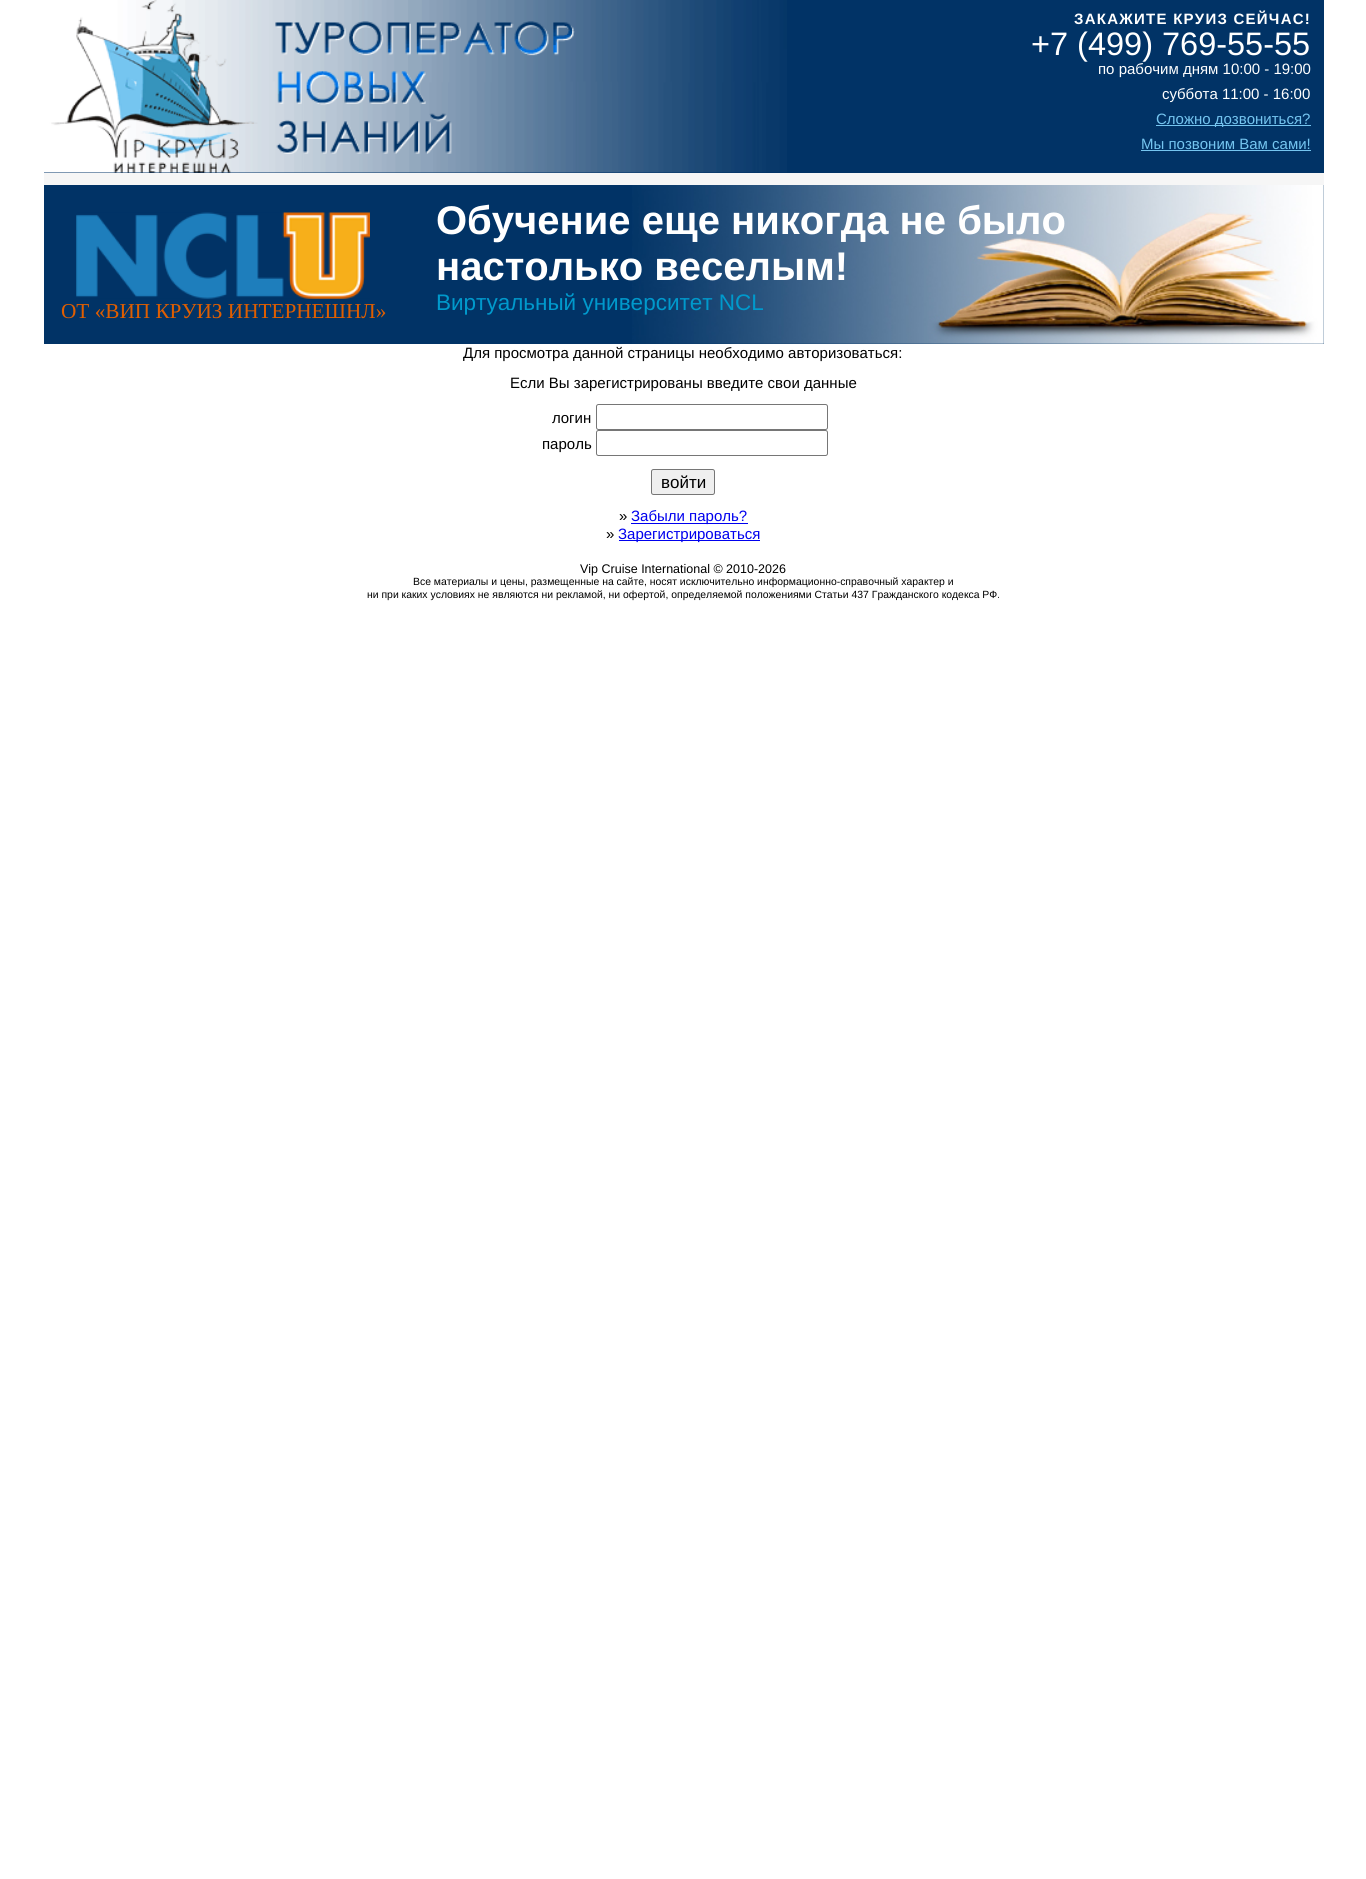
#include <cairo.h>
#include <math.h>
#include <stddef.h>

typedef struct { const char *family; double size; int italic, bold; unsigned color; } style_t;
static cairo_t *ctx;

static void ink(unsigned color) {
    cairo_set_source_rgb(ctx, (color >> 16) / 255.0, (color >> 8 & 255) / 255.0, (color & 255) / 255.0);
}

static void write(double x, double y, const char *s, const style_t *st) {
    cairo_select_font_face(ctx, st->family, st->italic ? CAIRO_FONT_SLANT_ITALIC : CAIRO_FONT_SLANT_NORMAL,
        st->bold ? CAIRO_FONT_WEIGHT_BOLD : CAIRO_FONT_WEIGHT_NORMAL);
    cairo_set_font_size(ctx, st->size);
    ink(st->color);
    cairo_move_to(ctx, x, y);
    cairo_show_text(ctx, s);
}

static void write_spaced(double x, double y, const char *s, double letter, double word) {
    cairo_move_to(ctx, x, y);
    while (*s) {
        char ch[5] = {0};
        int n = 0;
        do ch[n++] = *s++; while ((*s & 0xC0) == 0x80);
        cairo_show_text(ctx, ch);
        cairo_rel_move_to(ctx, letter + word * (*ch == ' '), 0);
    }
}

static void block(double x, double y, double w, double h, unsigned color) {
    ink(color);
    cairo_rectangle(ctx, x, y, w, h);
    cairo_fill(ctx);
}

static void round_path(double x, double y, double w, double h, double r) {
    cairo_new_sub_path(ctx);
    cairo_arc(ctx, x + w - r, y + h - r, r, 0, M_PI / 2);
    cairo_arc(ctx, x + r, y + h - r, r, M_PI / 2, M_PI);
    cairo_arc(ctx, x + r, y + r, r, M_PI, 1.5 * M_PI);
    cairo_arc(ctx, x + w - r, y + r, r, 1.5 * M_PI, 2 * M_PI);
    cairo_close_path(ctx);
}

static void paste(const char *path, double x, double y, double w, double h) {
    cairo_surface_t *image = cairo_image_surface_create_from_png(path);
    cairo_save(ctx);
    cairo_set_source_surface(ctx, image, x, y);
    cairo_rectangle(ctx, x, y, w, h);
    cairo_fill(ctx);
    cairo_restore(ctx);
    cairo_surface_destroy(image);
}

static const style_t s1 = {"Liberation Sans", 32.5, 0, 0, 0xffffff};
static const style_t s2 = {"Liberation Sans", 15, 0, 0, 0xffffff};
static const style_t s3 = {"Liberation Sans", 15, 0, 0, 0x75c5f0};
static const style_t s4 = {"Liberation Serif", 21.25, 0, 0, 0xe05e00};
static const style_t s5 = {"Liberation Sans", 40, 0, 1, 0xffffff};
static const style_t s6 = {"Liberation Sans", 22.5, 0, 0, 0x0099cc};
static const style_t s7 = {"Liberation Sans", 15, 0, 0, 0x000000};
static const style_t s8 = {"Liberation Sans", 17, 0, 0, 0x000000};
static const style_t s9 = {"Liberation Sans", 15, 0, 0, 0x0000ee};
static const style_t s10 = {"Liberation Sans", 12.5, 0, 0, 0x000000};
static const style_t s11 = {"Liberation Sans", 10.42, 0, 0, 0x000000};

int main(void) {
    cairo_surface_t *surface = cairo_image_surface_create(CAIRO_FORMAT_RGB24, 1366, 1879);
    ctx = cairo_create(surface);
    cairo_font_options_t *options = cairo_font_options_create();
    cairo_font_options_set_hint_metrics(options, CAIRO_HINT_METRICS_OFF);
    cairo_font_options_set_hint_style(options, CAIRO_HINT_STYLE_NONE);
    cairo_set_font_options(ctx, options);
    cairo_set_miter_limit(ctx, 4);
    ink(0xffffff);
    cairo_paint(ctx);
    block(44, 0, 1280, 173, 0x013366);
    paste("pic1.png", 44, 0, 743, 173);
    block(44, 173, 1280, 12, 0xf6f6f6);
    cairo_select_font_face(ctx, "Liberation Sans", CAIRO_FONT_SLANT_NORMAL, CAIRO_FONT_WEIGHT_BOLD);
    cairo_set_font_size(ctx, 15);
    ink(0xffffff);
    write_spaced(1074, 24, "ЗАКАЖИТЕ КРУИЗ СЕЙЧАС!", 1.25, 0);
    write(1031, 55, "+7 (499) 769-55-55", &s1);
    write(1098, 74, "по рабочим дням 10:00 - 19:00", &s2);
    write(1162, 99, "суббота 11:00 - 16:00", &s2);
    block(1156, 125, 155, 1, 0x75c5f0);
    write(1156, 124, "Сложно дозвониться?", &s3);
    write(1141, 149, "Мы позвоним Вам сами!", &s3);
    block(1141, 150, 170, 1, 0x75c5f0);
    block(44, 185, 1280, 159, 0x013366);
    paste("pic2.png", 632, 185, 692, 159);
    paste("pic3.png", 76, 212, 294, 87);
    write(61, 318, "ОТ «ВИП КРУИЗ ИНТЕРНЕШНЛ»", &s4);
    write(436, 234, "Обучение еще никогда не было", &s5);
    write(436, 280, "настолько веселым!", &s5);
    write(436, 310, "Виртуальный университет NCL", &s6);
    write(463, 358, "Для просмотра данной страницы необходимо авторизоваться:", &s7);
    write(510, 388, "Если Вы зарегистрированы введите свои данные", &s7);
    write(552, 423, "логин", &s7);
    round_path(596.5, 404.5, 231, 25, 2);
    ink(0x767676);
    cairo_set_line_width(ctx, 1);
    cairo_stroke(ctx);
    write(542, 449, "пароль", &s7);
    round_path(596.5, 430.5, 231, 25, 2);
    ink(0x767676);
    cairo_stroke(ctx);
    ink(0xefefef);
    round_path(651.5, 469.5, 63, 25, 2);
    cairo_fill_preserve(ctx);
    ink(0x767676);
    cairo_stroke(ctx);
    write(661, 488, "войти", &s8);
    write(619, 521, "»", &s7);
    block(631, 523, 117, 1, 0x0000ee);
    write(631, 521, "Забыли пароль?", &s9);
    write(606, 539, "»", &s7);
    block(619, 540, 141, 1, 0x0000ee);
    write(618, 539, "Зарегистрироваться", &s9);
    write(580, 573, "Vip Cruise International © 2010-2026", &s10);
    write(413, 585, "Все материалы и цены, размещенные на сайте, носят исключительно информационно-справочный характер и", &s11);
    write(367, 598, "ни при каких условиях не являются ни рекламой, ни офертой, определяемой положениями Статьи 437 Гражданского кодекса РФ.", &s11);
    cairo_surface_write_to_png(surface, "screenshot.png");
    cairo_font_options_destroy(options);
    cairo_destroy(ctx);
    cairo_surface_destroy(surface);
    return 0;
}
